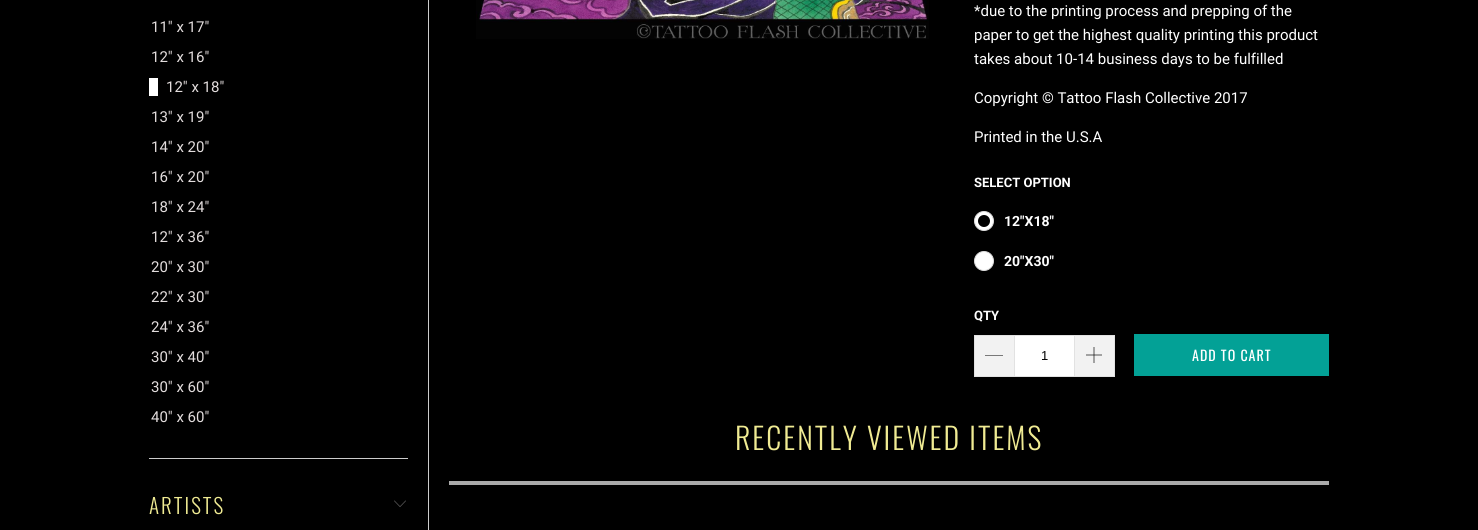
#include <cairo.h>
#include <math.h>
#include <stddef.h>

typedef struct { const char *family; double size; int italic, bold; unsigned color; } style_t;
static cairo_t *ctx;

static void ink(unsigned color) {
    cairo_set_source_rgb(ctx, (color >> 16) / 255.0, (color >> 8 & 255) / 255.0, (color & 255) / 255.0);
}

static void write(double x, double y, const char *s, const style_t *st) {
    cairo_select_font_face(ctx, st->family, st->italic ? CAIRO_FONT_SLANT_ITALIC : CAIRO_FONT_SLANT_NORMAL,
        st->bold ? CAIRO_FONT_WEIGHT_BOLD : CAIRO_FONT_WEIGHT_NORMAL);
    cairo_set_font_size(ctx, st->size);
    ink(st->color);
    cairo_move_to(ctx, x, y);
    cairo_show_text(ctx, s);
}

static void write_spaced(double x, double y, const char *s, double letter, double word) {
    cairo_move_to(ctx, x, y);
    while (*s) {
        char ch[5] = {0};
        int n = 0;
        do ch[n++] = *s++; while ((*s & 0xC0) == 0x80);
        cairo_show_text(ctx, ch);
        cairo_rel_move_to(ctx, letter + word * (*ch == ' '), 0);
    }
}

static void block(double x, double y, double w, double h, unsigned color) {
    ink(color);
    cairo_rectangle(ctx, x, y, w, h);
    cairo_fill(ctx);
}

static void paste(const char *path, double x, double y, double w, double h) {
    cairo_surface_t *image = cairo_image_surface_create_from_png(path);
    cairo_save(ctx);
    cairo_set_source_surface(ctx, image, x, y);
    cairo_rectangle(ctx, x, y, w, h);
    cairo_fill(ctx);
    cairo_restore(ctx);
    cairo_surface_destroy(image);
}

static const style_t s1 = {"Roboto", 15, 0, 0, 0xe3dddd};
static const style_t s2 = {"Roboto", 15, 0, 0, 0xffffff};
static const style_t s3 = {"Roboto", 13, 0, 1, 0xffffff};
static const style_t s4 = {"Roboto", 14, 0, 1, 0xffffff};
static const style_t s5 = {"Liberation Sans", 13, 0, 0, 0x000000};

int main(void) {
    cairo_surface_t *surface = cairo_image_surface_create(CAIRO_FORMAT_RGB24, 1478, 530);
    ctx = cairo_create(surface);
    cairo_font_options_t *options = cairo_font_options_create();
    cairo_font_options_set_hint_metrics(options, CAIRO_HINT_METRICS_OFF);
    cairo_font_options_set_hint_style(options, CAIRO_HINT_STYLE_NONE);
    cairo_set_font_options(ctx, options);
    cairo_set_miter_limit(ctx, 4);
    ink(0x000000);
    cairo_paint(ctx);
    block(428, 0, 1, 530, 0xcccccc);
    block(149, 458, 259, 1, 0xcccccc);
    write(151, 32, "11\" x 17\"", &s1);
    write(151, 62, "12\" x 16\"", &s1);
    block(149, 78, 9, 18, 0xffffff);
    write(166, 92, "12\" x 18\"", &s1);
    write(151, 122, "13\" x 19\"", &s1);
    write(151, 152, "14\" x 20\"", &s1);
    write(151, 182, "16\" x 20\"", &s1);
    write(151, 212, "18\" x 24\"", &s1);
    write(151, 242, "12\" x 36\"", &s1);
    write(151, 272, "20\" x 30\"", &s1);
    write(151, 302, "22\" x 30\"", &s1);
    write(151, 332, "24\" x 36\"", &s1);
    write(151, 362, "30\" x 40\"", &s1);
    write(151, 392, "30\" x 60\"", &s1);
    write(151, 422, "40\" x 60\"", &s1);
    cairo_select_font_face(ctx, "Oswald Light", CAIRO_FONT_SLANT_NORMAL, CAIRO_FONT_WEIGHT_NORMAL);
    cairo_set_font_size(ctx, 21);
    ink(0xf0eb93);
    write_spaced(149, 514, "ARTISTS", 2, 0);
    paste("pic1.png", 394, 500, 12, 7);
    paste("pic2.png", 476, 0, 453, 39);
    write(974, 16, "*due to the printing process and prepping of the", &s2);
    write(974, 40, "paper to get the highest quality printing this product", &s2);
    write(974, 64, "takes about 10-14 business days to be fulfilled", &s2);
    write(974, 103, "Copyright © Tattoo Flash Collective 2017", &s2);
    write(974, 142, "Printed in the U.S.A", &s2);
    write(974, 187, "SELECT OPTION", &s3);
    cairo_new_path(ctx);
    cairo_arc(ctx, 984, 221, 9.5, 0, 2 * M_PI);
    cairo_fill_preserve(ctx);
    ink(0xdddddd);
    cairo_set_line_width(ctx, 1);
    cairo_stroke(ctx);
    ink(0x000000);
    cairo_arc(ctx, 984, 221, 6, 0, 2 * M_PI);
    cairo_fill(ctx);
    write(1004, 226, "12\"X18\"", &s4);
    cairo_new_path(ctx);
    cairo_arc(ctx, 984, 261, 9.5, 0, 2 * M_PI);
    cairo_fill_preserve(ctx);
    ink(0xdddddd);
    cairo_stroke(ctx);
    write(1004, 266, "20\"X30\"", &s4);
    write(974, 320, "QTY", &s3);
    block(975, 336, 39, 40, 0xf2f2f2);
    block(974, 335, 40, 1, 0xe2e2e2);
    block(974, 376, 40, 1, 0xe2e2e2);
    block(974, 335, 1, 42, 0xe2e2e2);
    ink(0x000000);
    cairo_new_path(ctx);
    cairo_move_to(ctx, 985, 355);
    cairo_line_to(ctx, 1003, 355);
    cairo_line_to(ctx, 1003, 355.5);
    cairo_line_to(ctx, 985, 355.5);
    cairo_close_path(ctx);
    cairo_fill(ctx);
    ink(0xffffff);
    cairo_rectangle(ctx, 1014.5, 335.5, 60, 41);
    cairo_fill_preserve(ctx);
    ink(0xe2e2e2);
    cairo_stroke(ctx);
    write(1041, 360, "1", &s5);
    block(1075, 336, 39, 40, 0xf2f2f2);
    block(1075, 335, 40, 1, 0xe2e2e2);
    block(1114, 335, 1, 42, 0xe2e2e2);
    block(1075, 376, 40, 1, 0xe2e2e2);
    paste("pic3.png", 1086, 347, 16, 16);
    block(1134, 334, 195, 42, 0x03a196);
    cairo_select_font_face(ctx, "Oswald", CAIRO_FONT_SLANT_NORMAL, CAIRO_FONT_WEIGHT_NORMAL);
    cairo_set_font_size(ctx, 14);
    ink(0xffffff);
    write_spaced(1192, 361, "ADD TO CART", 1, 0);
    cairo_select_font_face(ctx, "Oswald Light", CAIRO_FONT_SLANT_NORMAL, CAIRO_FONT_WEIGHT_NORMAL);
    cairo_set_font_size(ctx, 30);
    ink(0xf0eb93);
    write_spaced(735, 450, "RECENTLY VIEWED ITEMS", 2, 0);
    block(449, 481, 880, 4, 0xaaaaaa);
    cairo_surface_write_to_png(surface, "screenshot.png");
    cairo_font_options_destroy(options);
    cairo_destroy(ctx);
    cairo_surface_destroy(surface);
    return 0;
}
